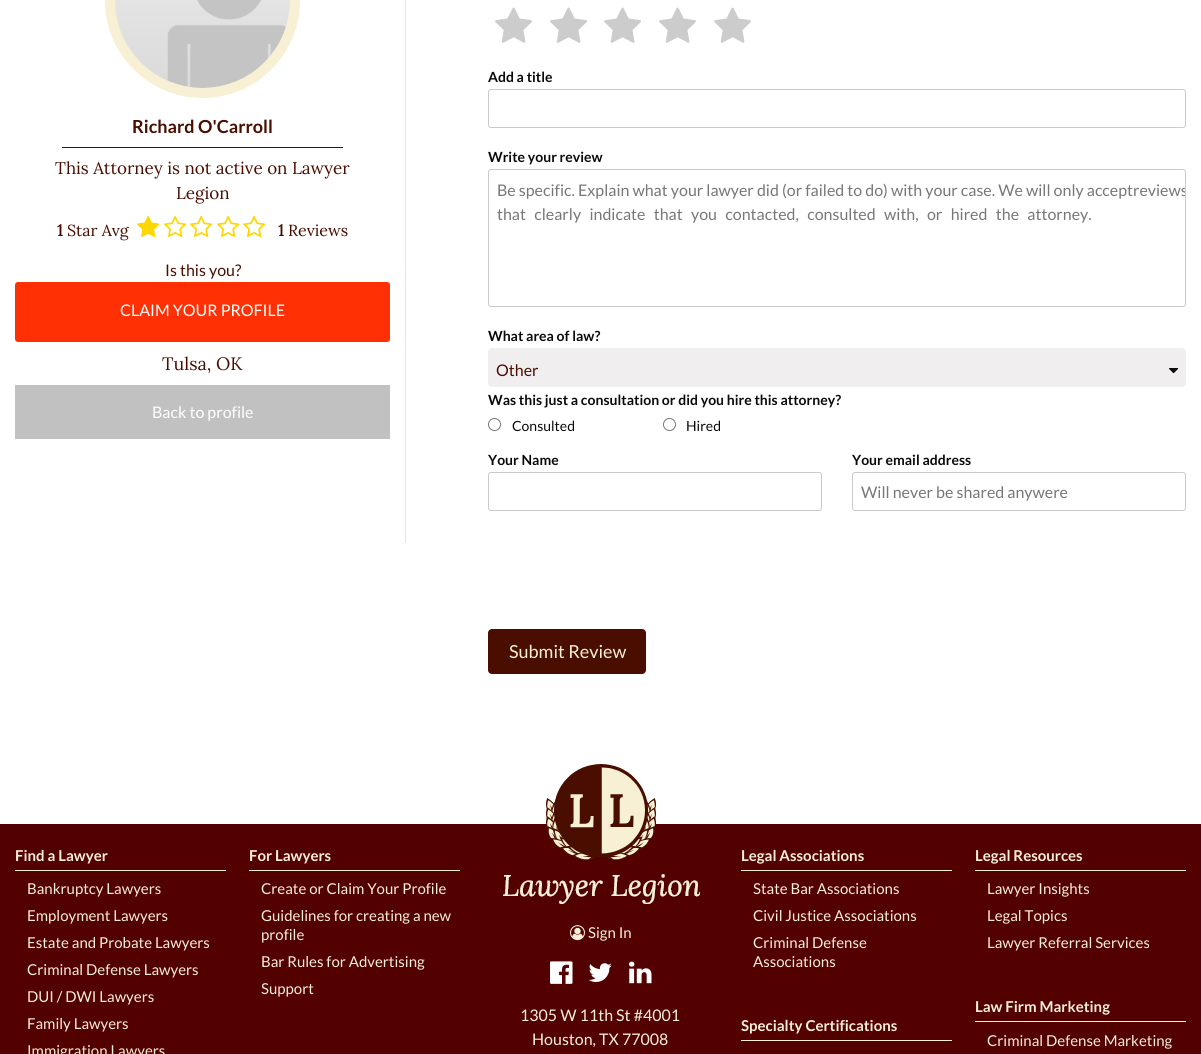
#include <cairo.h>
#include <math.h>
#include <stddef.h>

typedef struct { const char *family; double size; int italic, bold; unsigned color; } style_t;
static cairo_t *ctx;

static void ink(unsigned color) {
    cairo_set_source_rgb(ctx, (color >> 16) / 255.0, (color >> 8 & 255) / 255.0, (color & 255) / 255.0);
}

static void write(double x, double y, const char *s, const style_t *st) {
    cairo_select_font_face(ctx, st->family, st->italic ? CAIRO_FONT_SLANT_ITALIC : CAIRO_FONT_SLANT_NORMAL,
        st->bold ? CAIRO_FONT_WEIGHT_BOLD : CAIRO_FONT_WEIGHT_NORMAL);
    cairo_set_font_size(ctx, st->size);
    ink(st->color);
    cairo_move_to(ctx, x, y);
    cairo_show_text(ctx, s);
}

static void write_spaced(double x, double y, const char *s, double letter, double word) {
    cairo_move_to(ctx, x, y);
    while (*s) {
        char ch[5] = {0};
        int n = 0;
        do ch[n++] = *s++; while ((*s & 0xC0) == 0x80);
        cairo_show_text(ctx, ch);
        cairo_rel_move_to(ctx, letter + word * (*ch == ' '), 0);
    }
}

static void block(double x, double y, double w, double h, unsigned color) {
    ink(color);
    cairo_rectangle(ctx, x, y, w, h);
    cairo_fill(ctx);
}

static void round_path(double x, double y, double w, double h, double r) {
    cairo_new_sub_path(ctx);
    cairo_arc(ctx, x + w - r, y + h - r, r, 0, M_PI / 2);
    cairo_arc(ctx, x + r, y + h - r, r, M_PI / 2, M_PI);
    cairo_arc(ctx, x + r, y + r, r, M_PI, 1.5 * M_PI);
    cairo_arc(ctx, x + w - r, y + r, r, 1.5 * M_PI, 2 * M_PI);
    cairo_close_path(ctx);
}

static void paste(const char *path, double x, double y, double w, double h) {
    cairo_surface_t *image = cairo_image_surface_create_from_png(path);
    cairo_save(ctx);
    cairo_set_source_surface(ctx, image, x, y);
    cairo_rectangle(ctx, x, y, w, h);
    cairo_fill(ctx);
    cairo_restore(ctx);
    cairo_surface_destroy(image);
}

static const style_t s1 = {"Lato", 18, 0, 1, 0x4a0e01};
static const style_t s2 = {"Lora", 17, 0, 0, 0x4a0e01};
static const style_t s3 = {"Lora", 16, 0, 1, 0x4a0e01};
static const style_t s4 = {"Lora", 16, 0, 0, 0x4a0e01};
static const style_t s5 = {"Lato", 16, 0, 0, 0x4a0e01};
static const style_t s6 = {"Lato", 16, 0, 0, 0xffffff};
static const style_t s7 = {"Lora", 18, 0, 0, 0x4a0e01};
static const style_t s8 = {"Lato", 14, 0, 1, 0x0a0a0a};
static const style_t s9 = {"Lato", 16, 0, 0, 0x777777};
static const style_t s10 = {"Lato", 14, 0, 0, 0x0a0a0a};
static const style_t s11 = {"Lato", 18, 0, 0, 0xf7f0d4};
static const style_t s12 = {"Lato", 15, 0, 1, 0xf7f0d4};
static const style_t s13 = {"Lato", 15, 0, 0, 0xf7f0d4};
static const style_t s14 = {"Lato", 16, 0, 0, 0xf7f0d4};

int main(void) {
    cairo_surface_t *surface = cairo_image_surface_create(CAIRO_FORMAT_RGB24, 1201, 1054);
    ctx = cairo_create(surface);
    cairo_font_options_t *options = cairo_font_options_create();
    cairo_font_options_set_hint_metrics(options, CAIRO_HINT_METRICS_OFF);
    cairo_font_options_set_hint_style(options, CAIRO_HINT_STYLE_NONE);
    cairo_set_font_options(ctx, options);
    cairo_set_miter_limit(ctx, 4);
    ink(0xffffff);
    cairo_paint(ctx);
    ink(0xf7f0d4);
    cairo_arc(ctx, 202.5, 0.5, 92.5, 0, 2 * M_PI);
    cairo_fill_preserve(ctx);
    cairo_set_line_width(ctx, 10);
    cairo_stroke(ctx);
    paste("pic1.png", 115, 0, 175, 88);
    write(132, 133, "Richard O'Carroll", &s1);
    block(62, 147, 281, 1, 0x4a0e01);
    write(55, 174, "This Attorney is not active on Lawyer", &s2);
    write(176, 199, "Legion", &s2);
    write(57, 236, "1", &s3);
    write(67, 236, "Star Avg", &s4);
    paste("pic2.png", 137, 215, 23, 23);
    paste("pic3.png", 164, 215, 23, 23);
    paste("pic3.png", 190, 215, 23, 23);
    paste("pic3.png", 217, 215, 23, 23);
    paste("pic3.png", 243, 215, 23, 23);
    write(278, 236, "1", &s3);
    write(288, 236, "Reviews", &s4);
    write(165, 276, "Is this you?", &s5);
    ink(0xff3003);
    round_path(15, 282, 375, 60, 3);
    cairo_fill(ctx);
    write(120, 316, "CLAIM YOUR PROFILE", &s6);
    write(162, 370, "Tulsa, OK", &s7);
    block(15, 385, 375, 54, 0xc2c1c1);
    write(152, 418, "Back to profile", &s6);
    block(405, 0, 1, 543, 0xe4e4e4);
    paste("pic4.png", 495, 7, 37, 36);
    paste("pic4.png", 550, 7, 37, 36);
    paste("pic4.png", 604, 7, 37, 36);
    paste("pic4.png", 659, 7, 37, 36);
    paste("pic4.png", 714, 7, 37, 36);
    write(488, 82, "Add a title", &s8);
    round_path(488.5, 89.5, 697, 38, 2.5);
    ink(0xcacaca);
    cairo_set_line_width(ctx, 1);
    cairo_stroke(ctx);
    write(488, 162, "Write your review", &s8);
    round_path(488.5, 169.5, 697, 137, 2.5);
    ink(0xcacaca);
    cairo_stroke(ctx);
    write(497, 196, "Be specific. Explain what your lawyer did (or failed to do) with your case. We will only accept", &s9);
    cairo_save(ctx);
    round_path(489, 170, 696, 136, 2);
    cairo_clip(ctx);
    write(1133, 196, "reviews", &s9);
    cairo_restore(ctx);
    write_spaced(497, 220, "that clearly indicate that you contacted, consulted with, or hired the attorney.", 0, 5.25);
    write(488, 341, "What area of law?", &s8);
    ink(0xf0eeee);
    round_path(488, 348, 698, 39, 4);
    cairo_fill(ctx);
    write(496, 376, "Other", &s5);
    paste("pic5.png", 1169, 368, 10, 6);
    write(488, 405, "Was this just a consultation or did you hire this attorney?", &s8);
    cairo_new_path(ctx);
    cairo_arc(ctx, 494.5, 424.5, 6, 0, 2 * M_PI);
    ink(0x767676);
    cairo_stroke(ctx);
    write(512, 431, "Consulted", &s10);
    cairo_new_path(ctx);
    cairo_arc(ctx, 669.5, 424.5, 6, 0, 2 * M_PI);
    ink(0x767676);
    cairo_stroke(ctx);
    write(686, 431, "Hired", &s10);
    write(488, 465, "Your Name", &s8);
    round_path(488.5, 472.5, 333, 38, 2.5);
    ink(0xcacaca);
    cairo_stroke(ctx);
    write(852, 465, "Your email address", &s8);
    round_path(852.5, 472.5, 333, 38, 2.5);
    ink(0xcacaca);
    cairo_stroke(ctx);
    write(861, 498, "Will never be shared anywere", &s9);
    ink(0x4a0e01);
    round_path(488, 629, 158, 45, 4);
    cairo_fill(ctx);
    write(509, 658, "Submit Review", &s11);
    block(0, 824, 1201, 230, 0x530000);
    block(15, 870, 211, 1, 0xf7f0d4);
    write(15, 861, "Find a Lawyer", &s12);
    write(27, 894, "Bankruptcy Lawyers", &s13);
    write(27, 921, "Employment Lawyers", &s13);
    write(27, 948, "Estate and Probate Lawyers", &s13);
    write(27, 975, "Criminal Defense Lawyers", &s13);
    write(27, 1002, "DUI / DWI Lawyers", &s13);
    write(27, 1029, "Family Lawyers", &s13);
    write(27, 1056, "Immigration Lawyers", &s13);
    block(249, 870, 211, 1, 0xf7f0d4);
    write(249, 861, "For Lawyers", &s12);
    write(261, 894, "Create or Claim Your Profile", &s13);
    write(261, 921, "Guidelines for creating a new", &s13);
    write(261, 940, "profile", &s13);
    write(261, 967, "Bar Rules for Advertising", &s13);
    write(261, 994, "Support", &s13);
    paste("pic6.png", 546, 764, 110, 96);
    paste("pic7.png", 503, 874, 197, 30);
    paste("pic8.png", 570, 925, 15, 16);
    write(588, 938, "Sign In", &s13);
    paste("pic9.png", 550, 961, 23, 23);
    paste("pic10.png", 588, 963, 24, 19);
    paste("pic11.png", 629, 961, 23, 23);
    write(520, 1021, "1305 W 11th St #4001", &s14);
    write(532, 1045, "Houston, TX 77008", &s14);
    block(741, 870, 211, 1, 0xf7f0d4);
    write(741, 861, "Legal Associations", &s12);
    write(753, 894, "State Bar Associations", &s13);
    write(753, 921, "Civil Justice Associations", &s13);
    write(753, 948, "Criminal Defense", &s13);
    write(753, 967, "Associations", &s13);
    block(741, 1040, 211, 1, 0xf7f0d4);
    write(741, 1031, "Specialty Certifications", &s12);
    block(975, 870, 211, 1, 0xf7f0d4);
    write(975, 861, "Legal Resources", &s12);
    write(987, 894, "Lawyer Insights", &s13);
    write(987, 921, "Legal Topics", &s13);
    write(987, 948, "Lawyer Referral Services", &s13);
    block(975, 1021, 211, 1, 0xf7f0d4);
    write(975, 1012, "Law Firm Marketing", &s12);
    write(987, 1046, "Criminal Defense Marketing", &s13);
    cairo_surface_write_to_png(surface, "screenshot.png");
    cairo_font_options_destroy(options);
    cairo_destroy(ctx);
    cairo_surface_destroy(surface);
    return 0;
}
